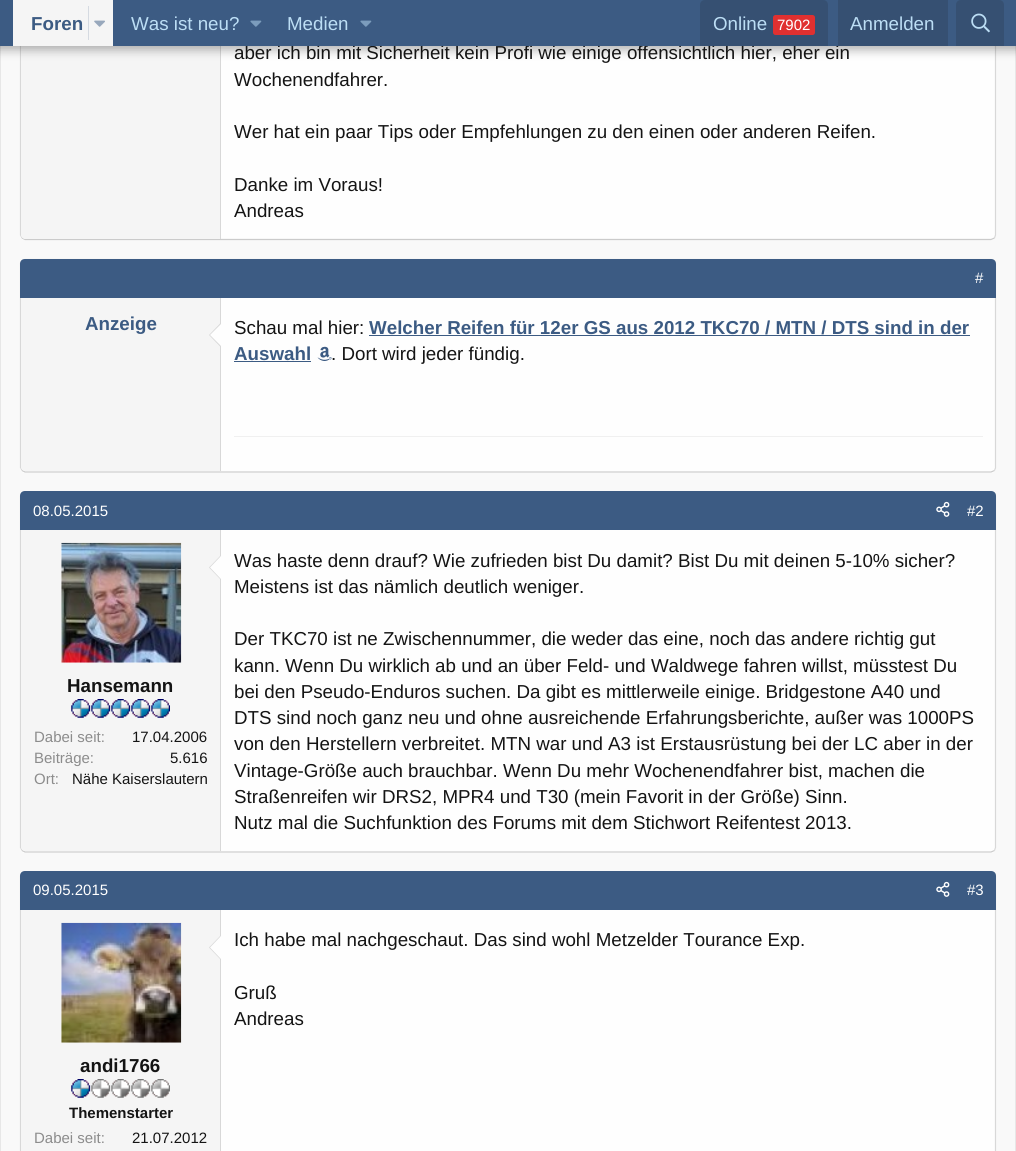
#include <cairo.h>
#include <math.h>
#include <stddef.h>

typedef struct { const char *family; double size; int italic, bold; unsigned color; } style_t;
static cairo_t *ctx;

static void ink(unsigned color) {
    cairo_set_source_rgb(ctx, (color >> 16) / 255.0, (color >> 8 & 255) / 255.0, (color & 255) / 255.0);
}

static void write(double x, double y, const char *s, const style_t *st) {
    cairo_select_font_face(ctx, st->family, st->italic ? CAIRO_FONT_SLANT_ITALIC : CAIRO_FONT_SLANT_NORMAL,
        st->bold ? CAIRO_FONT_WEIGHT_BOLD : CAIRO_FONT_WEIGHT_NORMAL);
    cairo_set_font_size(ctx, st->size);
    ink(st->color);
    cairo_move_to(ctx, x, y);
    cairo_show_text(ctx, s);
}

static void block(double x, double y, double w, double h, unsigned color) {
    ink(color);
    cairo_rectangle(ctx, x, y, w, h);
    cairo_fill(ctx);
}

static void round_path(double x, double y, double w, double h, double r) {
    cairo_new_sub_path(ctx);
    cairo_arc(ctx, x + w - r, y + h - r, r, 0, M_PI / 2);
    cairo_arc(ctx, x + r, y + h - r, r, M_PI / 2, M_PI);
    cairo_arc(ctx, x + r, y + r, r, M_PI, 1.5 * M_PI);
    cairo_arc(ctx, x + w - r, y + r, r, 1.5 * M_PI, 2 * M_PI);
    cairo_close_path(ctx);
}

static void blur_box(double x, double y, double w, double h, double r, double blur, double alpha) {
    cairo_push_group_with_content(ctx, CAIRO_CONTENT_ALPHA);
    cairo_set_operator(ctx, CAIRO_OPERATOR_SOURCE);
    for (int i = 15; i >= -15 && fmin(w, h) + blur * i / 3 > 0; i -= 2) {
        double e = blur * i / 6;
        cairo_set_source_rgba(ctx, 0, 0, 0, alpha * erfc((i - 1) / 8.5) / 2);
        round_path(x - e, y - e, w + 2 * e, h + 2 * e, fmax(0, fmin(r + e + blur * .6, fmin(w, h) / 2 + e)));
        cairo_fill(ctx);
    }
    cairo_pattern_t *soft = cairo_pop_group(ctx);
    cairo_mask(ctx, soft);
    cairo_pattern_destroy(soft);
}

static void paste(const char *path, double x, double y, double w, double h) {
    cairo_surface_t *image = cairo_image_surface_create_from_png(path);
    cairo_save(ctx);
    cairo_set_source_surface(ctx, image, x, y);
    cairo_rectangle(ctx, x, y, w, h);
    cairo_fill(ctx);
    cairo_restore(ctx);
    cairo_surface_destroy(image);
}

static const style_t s1 = {"Liberation Sans", 18.75, 0, 0, 0x141414};
static const style_t s2 = {"Liberation Sans", 18.75, 0, 1, 0x3c5b83};
static const style_t s3 = {"Liberation Sans", 18.75, 0, 0, 0xbcdef5};
static const style_t s4 = {"Liberation Sans", 15, 0, 0, 0xffffff};
static const style_t s5 = {"Liberation Sans", 18.75, 0, 1, 0x141414};
static const style_t s6 = {"Liberation Sans", 15, 0, 0, 0x8c8c8c};
static const style_t s7 = {"Liberation Sans", 15, 0, 0, 0x141414};
static const style_t s8 = {"Liberation Sans", 15, 0, 1, 0x141414};

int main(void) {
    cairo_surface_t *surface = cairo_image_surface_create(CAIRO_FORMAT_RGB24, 1016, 1151);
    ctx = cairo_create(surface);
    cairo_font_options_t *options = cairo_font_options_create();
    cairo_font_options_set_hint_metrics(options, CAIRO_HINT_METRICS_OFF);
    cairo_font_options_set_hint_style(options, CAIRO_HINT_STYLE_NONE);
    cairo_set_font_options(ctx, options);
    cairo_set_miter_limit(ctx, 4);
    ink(0xf9f9f9);
    cairo_paint(ctx);
    cairo_rectangle(ctx, 0.5, -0.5, 1015, 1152);
    ink(0xe7e7e7);
    cairo_set_line_width(ctx, 1);
    cairo_stroke(ctx);
    ink(0xfefefe);
    round_path(20, -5, 976, 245, 5);
    cairo_fill(ctx);
    cairo_new_path(ctx);
    cairo_move_to(ctx, 994.5, -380.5);
    cairo_line_to(ctx, 995.5, -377.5);
    cairo_line_to(ctx, 995.5, 235);
    cairo_line_to(ctx, 994.5, 238);
    ink(0xd8d8d8);
    cairo_set_line_width(ctx, 1.2);
    cairo_stroke(ctx);
    cairo_new_path(ctx);
    cairo_move_to(ctx, 994.5, 238);
    cairo_line_to(ctx, 991, 239.5);
    cairo_line_to(ctx, 25, 239.5);
    cairo_line_to(ctx, 22, 238);
    ink(0xcbcbcb);
    cairo_stroke(ctx);
    cairo_new_path(ctx);
    cairo_move_to(ctx, 22, 238);
    cairo_line_to(ctx, 20.5, 235);
    cairo_line_to(ctx, 20.5, -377.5);
    cairo_line_to(ctx, 22, -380.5);
    ink(0xd8d8d8);
    cairo_stroke(ctx);
    ink(0xf5f5f5);
    cairo_new_path(ctx);
    cairo_move_to(ctx, 21, -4);
    cairo_line_to(ctx, 221, -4);
    cairo_line_to(ctx, 221, 239);
    cairo_line_to(ctx, 25, 239);
    cairo_curve_to(ctx, 23, 239, 21, 237, 21, 235);
    cairo_close_path(ctx);
    cairo_fill(ctx);
    block(220, 46, 1, 193, 0xd8d8d8);
    ink(0x000000);
    blur_box(-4, -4, 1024, 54, 0, 5, 0.3);
    write(234, 59, "aber ich bin mit Sicherheit kein Profi wie einige offensichtlich hier, eher ein", &s1);
    block(0, 0, 1016, 46, 0x3c5b83);
    block(13, 0, 100, 46, 0xf5f5f5);
    write(31, 30, "Foren", &s2);
    block(88, 6, 1, 34, 0xd5dae1);
    paste("pic1.png", 94, 20, 11, 7);
    write(131, 30, "Was ist neu?", &s3);
    paste("pic2.png", 250, 20, 12, 7);
    write(287, 30, "Medien", &s3);
    paste("pic2.png", 360, 20, 12, 7);
    ink(0x365072);
    cairo_new_path(ctx);
    cairo_move_to(ctx, 705, 0);
    cairo_line_to(ctx, 823, 0);
    cairo_curve_to(ctx, 826, 0, 828, 2, 828, 5);
    cairo_line_to(ctx, 828, 46);
    cairo_line_to(ctx, 700, 46);
    cairo_line_to(ctx, 700, 5);
    cairo_curve_to(ctx, 700, 2, 702, 0, 705, 0);
    cairo_close_path(ctx);
    cairo_fill(ctx);
    write(713, 30, "Online", &s3);
    ink(0xe03030);
    round_path(773, 15, 42, 20, 2.5);
    cairo_fill(ctx);
    write(777, 30, "7902", &s4);
    block(838, 0, 110, 46, 0x365072);
    write(850, 30, "Anmelden", &s3);
    ink(0x365072);
    cairo_new_path(ctx);
    cairo_move_to(ctx, 961, 0);
    cairo_line_to(ctx, 999, 0);
    cairo_curve_to(ctx, 1002, 0, 1004, 2, 1004, 5);
    cairo_line_to(ctx, 1004, 46);
    cairo_line_to(ctx, 956, 46);
    cairo_line_to(ctx, 956, 5);
    cairo_curve_to(ctx, 956, 2, 958, 0, 961, 0);
    cairo_close_path(ctx);
    cairo_fill(ctx);
    paste("pic3.png", 971, 13, 19, 20);
    write(234, 86, "Wochenendfahrer.", &s1);
    write(234, 138, "Wer hat ein paar Tips oder Empfehlungen zu den einen oder anderen Reifen.", &s1);
    write(234, 191, "Danke im Voraus!", &s1);
    write(234, 217, "Andreas", &s1);
    ink(0xfefefe);
    round_path(20, 259, 976, 214, 5);
    cairo_fill(ctx);
    cairo_new_path(ctx);
    cairo_move_to(ctx, 22, 260.5);
    cairo_line_to(ctx, 25, 259.5);
    cairo_line_to(ctx, 991, 259.5);
    cairo_line_to(ctx, 994.5, 260.5);
    ink(0xdfdfdf);
    cairo_stroke(ctx);
    cairo_new_path(ctx);
    cairo_move_to(ctx, 994.5, 260.5);
    cairo_line_to(ctx, 995.5, 264);
    cairo_line_to(ctx, 995.5, 468);
    cairo_line_to(ctx, 994.5, 470.5);
    ink(0xd8d8d8);
    cairo_stroke(ctx);
    cairo_new_path(ctx);
    cairo_move_to(ctx, 994.5, 470.5);
    cairo_line_to(ctx, 991, 472);
    cairo_line_to(ctx, 25, 472);
    cairo_line_to(ctx, 22, 470.5);
    ink(0xcbcbcb);
    cairo_stroke(ctx);
    cairo_new_path(ctx);
    cairo_move_to(ctx, 22, 470.5);
    cairo_line_to(ctx, 20.5, 467.5);
    cairo_line_to(ctx, 20.5, 263.5);
    cairo_line_to(ctx, 22, 260.5);
    ink(0xd8d8d8);
    cairo_stroke(ctx);
    ink(0x3c5b83);
    cairo_new_path(ctx);
    cairo_move_to(ctx, 25, 259);
    cairo_line_to(ctx, 991, 259);
    cairo_curve_to(ctx, 994, 259, 996, 261, 996, 264);
    cairo_line_to(ctx, 996, 298);
    cairo_line_to(ctx, 20, 298);
    cairo_line_to(ctx, 20, 264);
    cairo_curve_to(ctx, 20, 261, 22, 259, 25, 259);
    cairo_close_path(ctx);
    cairo_fill(ctx);
    write(975, 283, "#", &s4);
    ink(0xf5f5f5);
    cairo_new_path(ctx);
    cairo_move_to(ctx, 21, 298);
    cairo_line_to(ctx, 221, 298);
    cairo_line_to(ctx, 221, 471);
    cairo_line_to(ctx, 25, 471);
    cairo_curve_to(ctx, 23, 471, 21, 469, 21, 467);
    cairo_close_path(ctx);
    cairo_fill(ctx);
    block(220, 298, 1, 173, 0xd8d8d8);
    write(85, 330, "Anzeige", &s2);
    ink(0xd8d8d8);
    cairo_new_path(ctx);
    cairo_move_to(ctx, 221, 322.5);
    cairo_line_to(ctx, 221, 347.5);
    cairo_line_to(ctx, 209, 335);
    cairo_close_path(ctx);
    cairo_fill(ctx);
    ink(0xfefefe);
    cairo_new_path(ctx);
    cairo_move_to(ctx, 221, 324);
    cairo_line_to(ctx, 221, 346);
    cairo_line_to(ctx, 210, 335);
    cairo_close_path(ctx);
    cairo_fill(ctx);
    write(234, 334, "Schau mal hier:", &s1);
    write(369, 334, "Welcher Reifen für 12er GS aus 2012 TKC70 / MTN / DTS sind in der", &s2);
    block(369, 335, 601, 1, 0x3c5b83);
    write(234, 360, "Auswahl", &s2);
    block(234, 361, 77, 1, 0x3c5b83);
    paste("pic4.png", 317, 346, 15, 15);
    write(331, 360, ". Dort wird jeder fündig.", &s1);
    block(234, 436, 749, 1, 0xf0f0f0);
    ink(0xfefefe);
    round_path(20, 491, 976, 362, 5);
    cairo_fill(ctx);
    cairo_new_path(ctx);
    cairo_move_to(ctx, 22, 493);
    cairo_line_to(ctx, 25, 492);
    cairo_line_to(ctx, 991, 492);
    cairo_line_to(ctx, 994.5, 493);
    ink(0xdfdfdf);
    cairo_stroke(ctx);
    cairo_new_path(ctx);
    cairo_move_to(ctx, 994.5, 493);
    cairo_line_to(ctx, 995.5, 496);
    cairo_line_to(ctx, 995.5, 847.5);
    cairo_line_to(ctx, 994.5, 850.5);
    ink(0xd8d8d8);
    cairo_stroke(ctx);
    cairo_new_path(ctx);
    cairo_move_to(ctx, 994.5, 850.5);
    cairo_line_to(ctx, 991, 852);
    cairo_line_to(ctx, 25, 852);
    cairo_line_to(ctx, 22, 850.5);
    ink(0xcbcbcb);
    cairo_stroke(ctx);
    cairo_new_path(ctx);
    cairo_move_to(ctx, 22, 850.5);
    cairo_line_to(ctx, 20.5, 847.5);
    cairo_line_to(ctx, 20.5, 496);
    cairo_line_to(ctx, 22, 493);
    ink(0xd8d8d8);
    cairo_stroke(ctx);
    ink(0x3c5b83);
    cairo_new_path(ctx);
    cairo_move_to(ctx, 25, 491);
    cairo_line_to(ctx, 991, 491);
    cairo_curve_to(ctx, 994, 491, 996, 493, 996, 496);
    cairo_line_to(ctx, 996, 530);
    cairo_line_to(ctx, 20, 530);
    cairo_line_to(ctx, 20, 496);
    cairo_curve_to(ctx, 20, 493, 22, 491, 25, 491);
    cairo_close_path(ctx);
    cairo_fill(ctx);
    write(33, 516, "08.05.2015", &s4);
    paste("pic5.png", 936, 501, 14, 16);
    write(967, 516, "#2", &s4);
    ink(0xf5f5f5);
    cairo_new_path(ctx);
    cairo_move_to(ctx, 21, 530);
    cairo_line_to(ctx, 221, 530);
    cairo_line_to(ctx, 221, 851);
    cairo_line_to(ctx, 25, 851);
    cairo_curve_to(ctx, 23, 851, 21, 849, 21, 847);
    cairo_close_path(ctx);
    cairo_fill(ctx);
    block(220, 530, 1, 321, 0xd8d8d8);
    block(61, 543, 120, 120, 0xfefefe);
    paste("pic6.png", 61, 542, 121, 121);
    ink(0xd8d8d8);
    cairo_new_path(ctx);
    cairo_move_to(ctx, 221, 555);
    cairo_line_to(ctx, 221, 580);
    cairo_line_to(ctx, 209, 567.5);
    cairo_close_path(ctx);
    cairo_fill(ctx);
    ink(0xfefefe);
    cairo_new_path(ctx);
    cairo_move_to(ctx, 221, 556);
    cairo_line_to(ctx, 221, 579);
    cairo_line_to(ctx, 210, 567.5);
    cairo_close_path(ctx);
    cairo_fill(ctx);
    write(67, 692, "Hansemann", &s5);
    paste("pic7.png", 71, 699, 99, 19);
    write(34, 742, "Dabei seit:", &s6);
    write(132, 742, "17.04.2006", &s7);
    write(34, 763, "Beiträge:", &s6);
    write(170, 763, "5.616", &s7);
    write(34, 784, "Ort:", &s6);
    write(72, 784, "Nähe Kaiserslautern", &s7);
    write(234, 567, "Was haste denn drauf? Wie zufrieden bist Du damit? Bist Du mit deinen 5-10% sicher?", &s1);
    write(234, 593, "Meistens ist das nämlich deutlich weniger.", &s1);
    write(234, 645, "Der TKC70 ist ne Zwischennummer, die weder das eine, noch das andere richtig gut", &s1);
    write(234, 672, "kann. Wenn Du wirklich ab und an über Feld- und Waldwege fahren willst, müsstest Du", &s1);
    write(234, 698, "bei den Pseudo-Enduros suchen. Da gibt es mittlerweile einige. Bridgestone A40 und", &s1);
    write(234, 724, "DTS sind noch ganz neu und ohne ausreichende Erfahrungsberichte, außer was 1000PS", &s1);
    write(234, 750, "von den Herstellern verbreitet. MTN war und A3 ist Erstausrüstung bei der LC aber in der", &s1);
    write(234, 777, "Vintage-Größe auch brauchbar. Wenn Du mehr Wochenendfahrer bist, machen die", &s1);
    write(234, 803, "Straßenreifen wir DRS2, MPR4 und T30 (mein Favorit in der Größe) Sinn.", &s1);
    write(234, 829, "Nutz mal die Suchfunktion des Forums mit dem Stichwort Reifentest 2013.", &s1);
    ink(0xfefefe);
    round_path(20, 871, 976, 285, 5);
    cairo_fill(ctx);
    cairo_new_path(ctx);
    cairo_move_to(ctx, 22, 873);
    cairo_line_to(ctx, 25, 872);
    cairo_line_to(ctx, 991, 872);
    cairo_line_to(ctx, 994.5, 873);
    ink(0xdfdfdf);
    cairo_stroke(ctx);
    cairo_new_path(ctx);
    cairo_move_to(ctx, 994.5, 873);
    cairo_line_to(ctx, 995.5, 876);
    cairo_line_to(ctx, 995.5, 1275);
    cairo_line_to(ctx, 994.5, 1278);
    ink(0xd8d8d8);
    cairo_stroke(ctx);
    cairo_new_path(ctx);
    cairo_move_to(ctx, 22, 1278);
    cairo_line_to(ctx, 20.5, 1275);
    cairo_line_to(ctx, 20.5, 876);
    cairo_line_to(ctx, 22, 873);
    cairo_stroke(ctx);
    ink(0x3c5b83);
    cairo_new_path(ctx);
    cairo_move_to(ctx, 25, 871);
    cairo_line_to(ctx, 991, 871);
    cairo_curve_to(ctx, 994, 871, 996, 873, 996, 876);
    cairo_line_to(ctx, 996, 910);
    cairo_line_to(ctx, 20, 910);
    cairo_line_to(ctx, 20, 876);
    cairo_curve_to(ctx, 20, 873, 22, 871, 25, 871);
    cairo_close_path(ctx);
    cairo_fill(ctx);
    write(33, 895, "09.05.2015", &s4);
    paste("pic5.png", 936, 881, 14, 16);
    write(967, 895, "#3", &s4);
    write(234, 946, "Ich habe mal nachgeschaut. Das sind wohl Metzelder Tourance Exp.", &s1);
    write(234, 999, "Gruß", &s1);
    write(234, 1025, "Andreas", &s1);
    block(21, 910, 199, 241, 0xf5f5f5);
    block(220, 910, 1, 241, 0xd8d8d8);
    block(61, 923, 120, 120, 0xfefefe);
    paste("pic8.png", 61, 922, 121, 121);
    ink(0xd8d8d8);
    cairo_new_path(ctx);
    cairo_move_to(ctx, 221, 935);
    cairo_line_to(ctx, 221, 960);
    cairo_line_to(ctx, 209, 947.5);
    cairo_close_path(ctx);
    cairo_fill(ctx);
    ink(0xfefefe);
    cairo_new_path(ctx);
    cairo_move_to(ctx, 221, 936);
    cairo_line_to(ctx, 221, 959);
    cairo_line_to(ctx, 210, 947.5);
    cairo_close_path(ctx);
    cairo_fill(ctx);
    write(80, 1072, "andi1766", &s5);
    paste("pic9.png", 71, 1079, 99, 19);
    write(69, 1118, "Themenstarter", &s8);
    write(34, 1143, "Dabei seit:", &s6);
    write(132, 1143, "21.07.2012", &s7);
    cairo_surface_write_to_png(surface, "screenshot.png");
    cairo_font_options_destroy(options);
    cairo_destroy(ctx);
    cairo_surface_destroy(surface);
    return 0;
}
